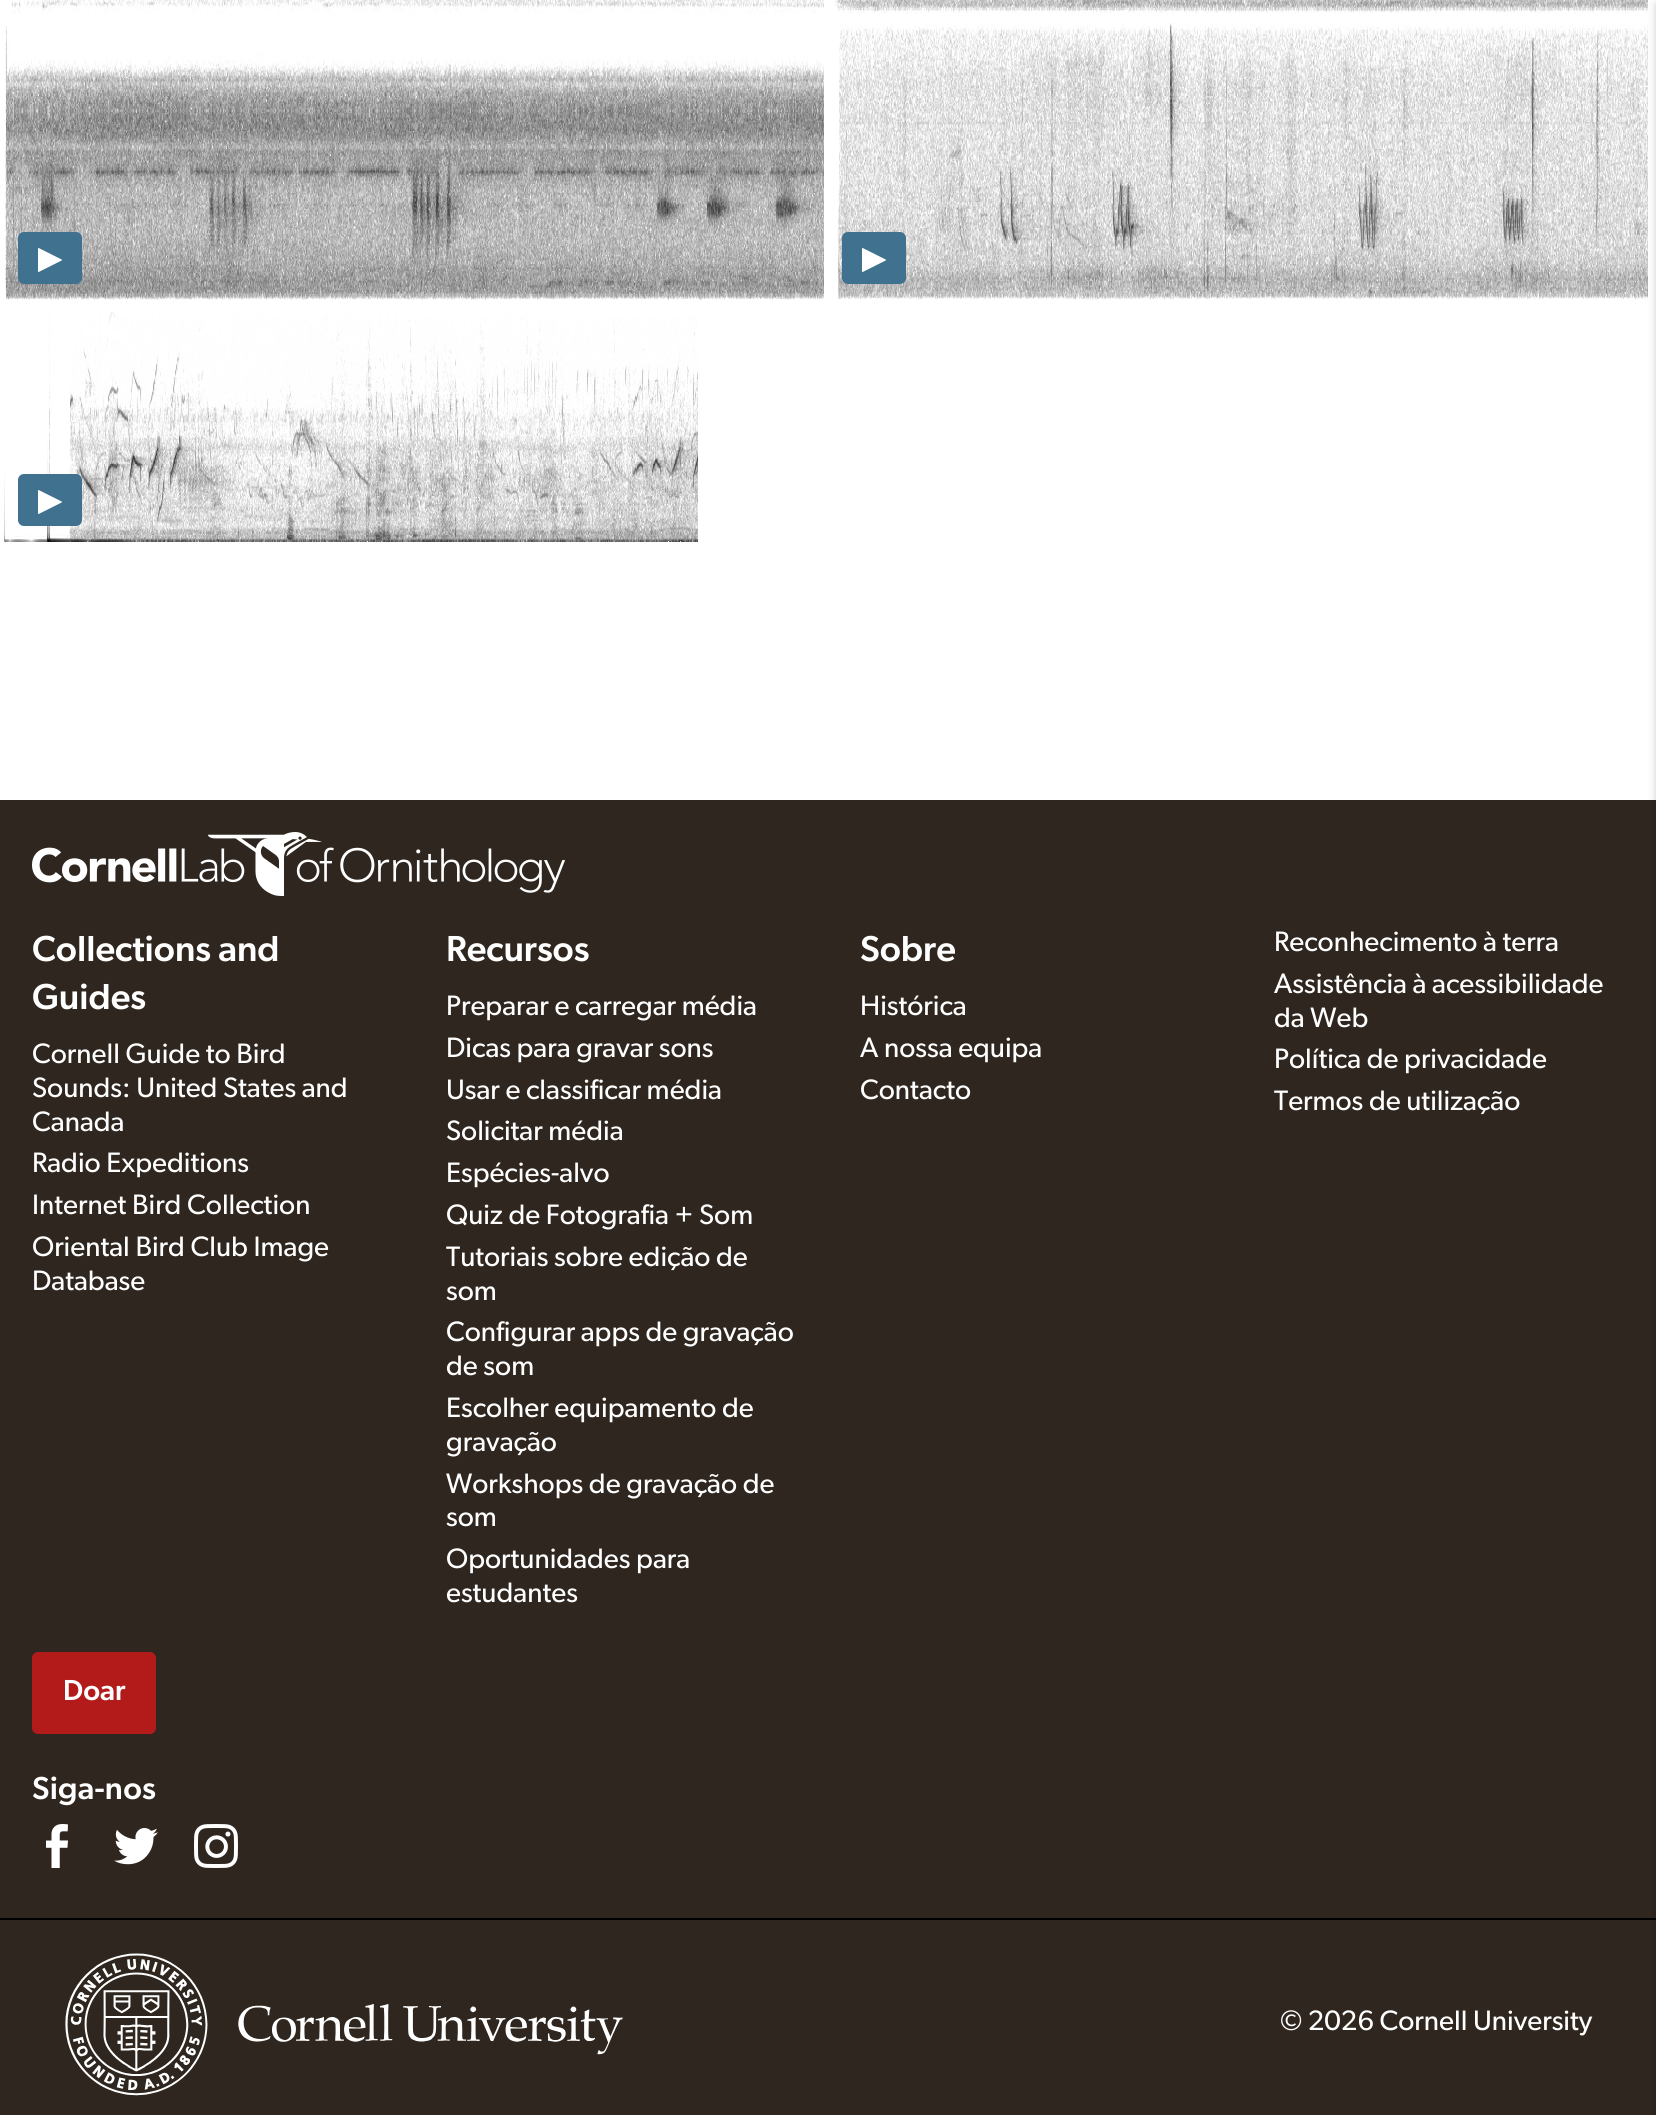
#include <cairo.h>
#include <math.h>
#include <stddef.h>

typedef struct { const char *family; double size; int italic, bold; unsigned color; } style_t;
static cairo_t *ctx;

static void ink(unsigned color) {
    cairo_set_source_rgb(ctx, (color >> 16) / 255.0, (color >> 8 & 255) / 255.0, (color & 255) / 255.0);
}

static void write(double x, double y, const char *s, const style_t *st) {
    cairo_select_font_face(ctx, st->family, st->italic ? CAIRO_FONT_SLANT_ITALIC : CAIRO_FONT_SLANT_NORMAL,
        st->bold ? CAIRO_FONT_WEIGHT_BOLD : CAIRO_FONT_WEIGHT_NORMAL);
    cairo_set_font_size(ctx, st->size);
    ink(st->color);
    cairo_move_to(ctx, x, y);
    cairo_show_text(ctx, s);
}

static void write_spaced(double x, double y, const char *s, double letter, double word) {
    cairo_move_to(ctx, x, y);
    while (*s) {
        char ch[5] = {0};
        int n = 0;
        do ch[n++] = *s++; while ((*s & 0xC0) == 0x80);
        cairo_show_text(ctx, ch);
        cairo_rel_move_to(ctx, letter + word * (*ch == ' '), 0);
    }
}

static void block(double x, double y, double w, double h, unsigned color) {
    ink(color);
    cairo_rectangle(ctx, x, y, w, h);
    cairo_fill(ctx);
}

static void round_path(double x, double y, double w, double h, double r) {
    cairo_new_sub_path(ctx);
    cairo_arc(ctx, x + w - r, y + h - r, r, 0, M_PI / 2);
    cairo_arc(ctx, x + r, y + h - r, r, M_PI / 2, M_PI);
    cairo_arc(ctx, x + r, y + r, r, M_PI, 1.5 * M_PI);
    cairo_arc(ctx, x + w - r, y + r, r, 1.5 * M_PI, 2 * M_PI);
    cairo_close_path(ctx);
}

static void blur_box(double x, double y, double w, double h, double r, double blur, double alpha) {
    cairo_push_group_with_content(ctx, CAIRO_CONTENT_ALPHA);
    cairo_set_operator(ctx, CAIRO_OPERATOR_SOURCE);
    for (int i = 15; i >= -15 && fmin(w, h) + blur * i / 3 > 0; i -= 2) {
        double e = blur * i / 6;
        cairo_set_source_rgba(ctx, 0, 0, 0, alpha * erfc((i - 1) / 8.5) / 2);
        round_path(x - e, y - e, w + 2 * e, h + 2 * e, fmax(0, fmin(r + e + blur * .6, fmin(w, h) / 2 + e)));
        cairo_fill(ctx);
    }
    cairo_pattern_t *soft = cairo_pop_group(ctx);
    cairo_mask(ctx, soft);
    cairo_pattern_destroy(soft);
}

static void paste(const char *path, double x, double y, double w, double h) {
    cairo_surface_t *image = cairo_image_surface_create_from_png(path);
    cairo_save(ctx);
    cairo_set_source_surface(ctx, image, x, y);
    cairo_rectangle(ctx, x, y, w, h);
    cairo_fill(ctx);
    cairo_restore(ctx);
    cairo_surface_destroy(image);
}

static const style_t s1 = {"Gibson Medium", 36.25, 0, 0, 0xffffff};
static const style_t s2 = {"Gibson", 28.2, 0, 0, 0xffffff};
static const style_t s3 = {"Gibson Medium", 29, 0, 0, 0xffffff};

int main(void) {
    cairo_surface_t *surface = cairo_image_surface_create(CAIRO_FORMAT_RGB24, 1656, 2115);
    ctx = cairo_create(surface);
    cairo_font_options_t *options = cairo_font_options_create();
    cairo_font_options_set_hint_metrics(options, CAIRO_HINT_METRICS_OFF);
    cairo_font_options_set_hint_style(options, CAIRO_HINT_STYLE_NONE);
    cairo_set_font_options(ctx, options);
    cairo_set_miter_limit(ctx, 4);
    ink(0xffffff);
    cairo_paint(ctx);
    paste("pic1.png", 11, 0, 813, 13);
    paste("pic2.png", 835, 0, 813, 13);
    paste("pic3.png", 5, 26, 819, 274);
    ink(0x40718f);
    round_path(18, 232, 64, 52, 6);
    cairo_fill(ctx);
    paste("pic4.png", 38, 248, 24, 24);
    paste("pic5.png", 837, 23, 811, 277);
    round_path(842, 232, 64, 52, 6);
    cairo_fill(ctx);
    paste("pic4.png", 862, 248, 24, 24);
    paste("pic6.png", 2, 311, 696, 231);
    round_path(18, 474, 64, 52, 6);
    cairo_fill(ctx);
    paste("pic4.png", 38, 490, 24, 24);
    block(0, 800, 1656, 1315, 0x2e261f);
    block(0, 1918, 1656, 2, 0x000000);
    ink(0x000000);
    blur_box(1656, 4, 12, 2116, 0, 4, 0.2);
    paste("pic7.png", 32, 832, 533, 64);
    write(32, 961, "Collections and", &s1);
    write(32, 1009, "Guides", &s1);
    write(32, 1063, "Cornell Guide to Bird", &s2);
    write(32, 1097, "Sounds: United States and", &s2);
    write(32, 1131, "Canada", &s2);
    write(32, 1172, "Radio Expeditions", &s2);
    write(32, 1214, "Internet Bird Collection", &s2);
    write(32, 1256, "Oriental Bird Club Image", &s2);
    write(32, 1290, "Database", &s2);
    write(446, 961, "Recursos", &s1);
    write(446, 1015, "Preparar e carregar média", &s2);
    write(446, 1057, "Dicas para gravar sons", &s2);
    write(446, 1099, "Usar e classificar média", &s2);
    write(446, 1140, "Solicitar média", &s2);
    write(446, 1182, "Espécies-alvo", &s2);
    write(446, 1224, "Quiz de Fotografia + Som", &s2);
    write(446, 1266, "Tutoriais sobre edição de", &s2);
    write(446, 1300, "som", &s2);
    write(446, 1341, "Configurar apps de gravação", &s2);
    write(446, 1375, "de som", &s2);
    write(446, 1417, "Escolher equipamento de", &s2);
    write(446, 1451, "gravação", &s2);
    write(446, 1493, "Workshops de gravação de", &s2);
    write(446, 1526, "som", &s2);
    write(446, 1568, "Oportunidades para", &s2);
    write(446, 1602, "estudantes", &s2);
    write(860, 961, "Sobre", &s1);
    write(860, 1015, "Histórica", &s2);
    write(860, 1057, "A nossa equipa", &s2);
    write(860, 1099, "Contacto", &s2);
    write(1274, 951, "Reconhecimento à terra", &s2);
    write(1274, 993, "Assistência à acessibilidade", &s2);
    write(1274, 1027, "da Web", &s2);
    write(1274, 1068, "Política de privacidade", &s2);
    write(1274, 1110, "Termos de utilização", &s2);
    ink(0xb31b1b);
    round_path(32, 1652, 124, 82, 6);
    cairo_fill(ctx);
    write(63, 1700, "Doar", &s3);
    cairo_set_font_size(ctx, 32);
    write_spaced(32, 1799, "Siga-nos", 0.25, 0);
    paste("pic8.png", 46, 1824, 22, 44);
    paste("pic9.png", 114, 1828, 44, 37);
    paste("pic10.png", 194, 1824, 44, 44);
    paste("pic11.png", 65, 1953, 558, 143);
    write(1280, 2030, "© 2026 Cornell University", &s2);
    cairo_surface_write_to_png(surface, "screenshot.png");
    cairo_font_options_destroy(options);
    cairo_destroy(ctx);
    cairo_surface_destroy(surface);
    return 0;
}
